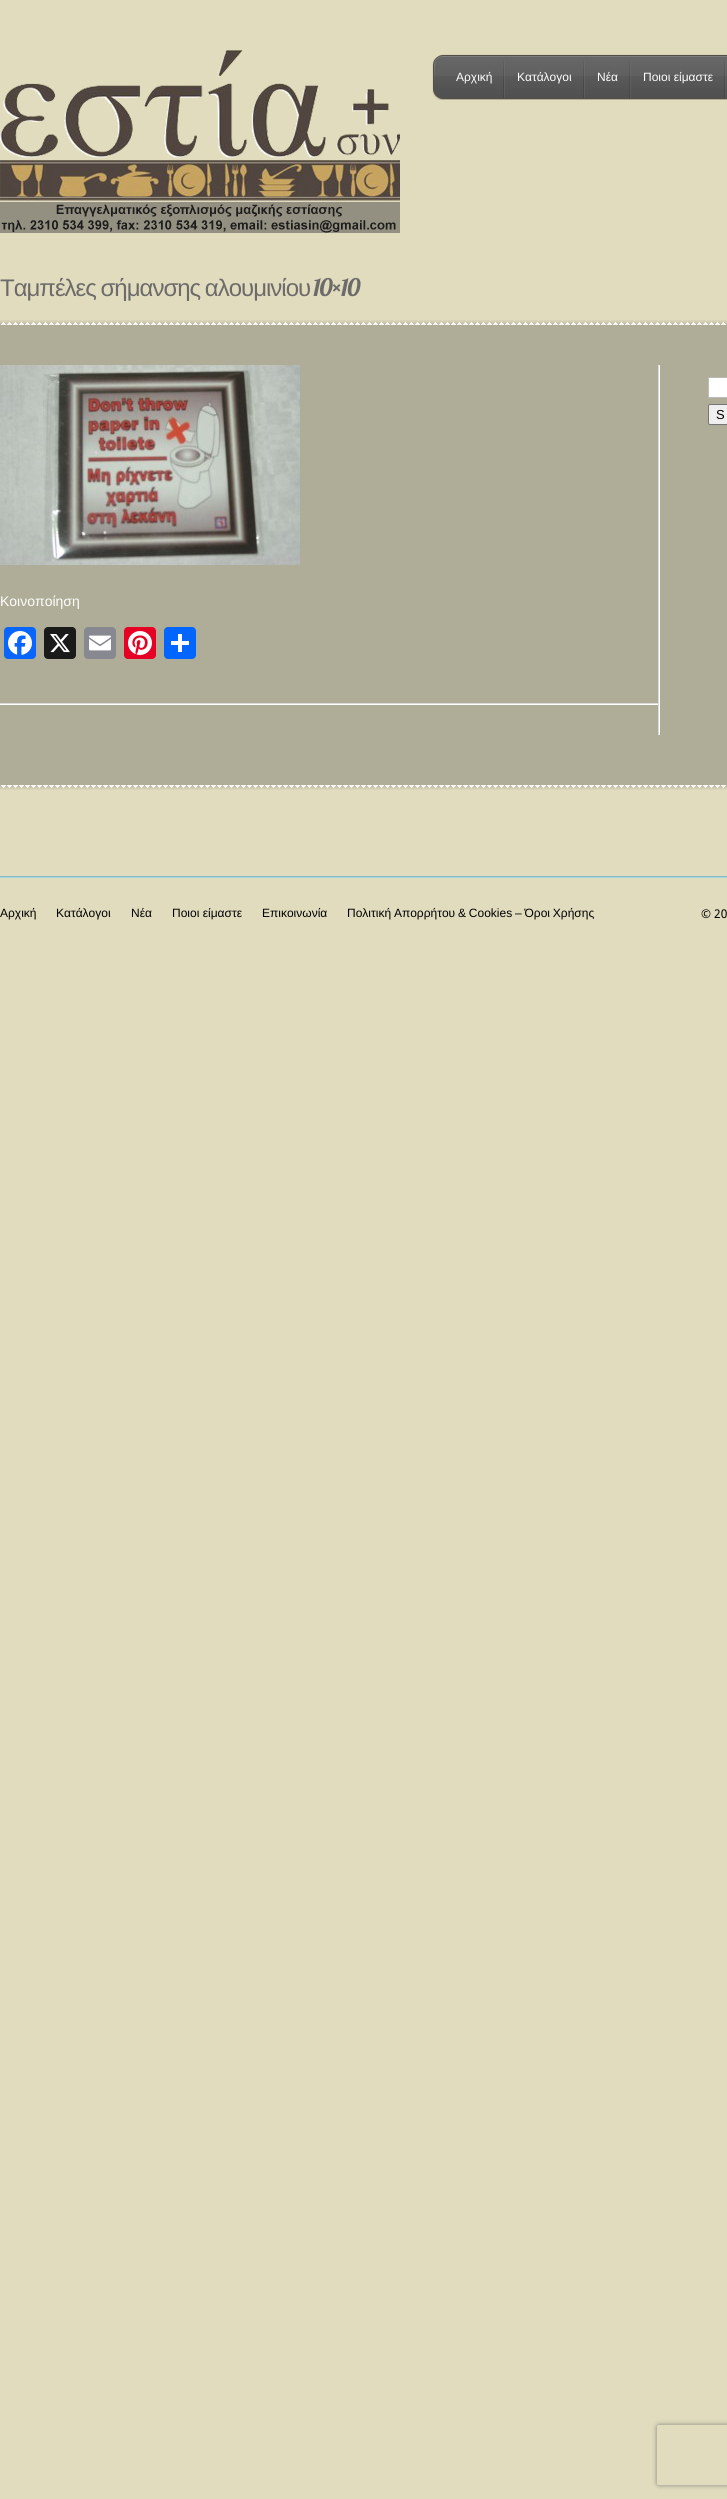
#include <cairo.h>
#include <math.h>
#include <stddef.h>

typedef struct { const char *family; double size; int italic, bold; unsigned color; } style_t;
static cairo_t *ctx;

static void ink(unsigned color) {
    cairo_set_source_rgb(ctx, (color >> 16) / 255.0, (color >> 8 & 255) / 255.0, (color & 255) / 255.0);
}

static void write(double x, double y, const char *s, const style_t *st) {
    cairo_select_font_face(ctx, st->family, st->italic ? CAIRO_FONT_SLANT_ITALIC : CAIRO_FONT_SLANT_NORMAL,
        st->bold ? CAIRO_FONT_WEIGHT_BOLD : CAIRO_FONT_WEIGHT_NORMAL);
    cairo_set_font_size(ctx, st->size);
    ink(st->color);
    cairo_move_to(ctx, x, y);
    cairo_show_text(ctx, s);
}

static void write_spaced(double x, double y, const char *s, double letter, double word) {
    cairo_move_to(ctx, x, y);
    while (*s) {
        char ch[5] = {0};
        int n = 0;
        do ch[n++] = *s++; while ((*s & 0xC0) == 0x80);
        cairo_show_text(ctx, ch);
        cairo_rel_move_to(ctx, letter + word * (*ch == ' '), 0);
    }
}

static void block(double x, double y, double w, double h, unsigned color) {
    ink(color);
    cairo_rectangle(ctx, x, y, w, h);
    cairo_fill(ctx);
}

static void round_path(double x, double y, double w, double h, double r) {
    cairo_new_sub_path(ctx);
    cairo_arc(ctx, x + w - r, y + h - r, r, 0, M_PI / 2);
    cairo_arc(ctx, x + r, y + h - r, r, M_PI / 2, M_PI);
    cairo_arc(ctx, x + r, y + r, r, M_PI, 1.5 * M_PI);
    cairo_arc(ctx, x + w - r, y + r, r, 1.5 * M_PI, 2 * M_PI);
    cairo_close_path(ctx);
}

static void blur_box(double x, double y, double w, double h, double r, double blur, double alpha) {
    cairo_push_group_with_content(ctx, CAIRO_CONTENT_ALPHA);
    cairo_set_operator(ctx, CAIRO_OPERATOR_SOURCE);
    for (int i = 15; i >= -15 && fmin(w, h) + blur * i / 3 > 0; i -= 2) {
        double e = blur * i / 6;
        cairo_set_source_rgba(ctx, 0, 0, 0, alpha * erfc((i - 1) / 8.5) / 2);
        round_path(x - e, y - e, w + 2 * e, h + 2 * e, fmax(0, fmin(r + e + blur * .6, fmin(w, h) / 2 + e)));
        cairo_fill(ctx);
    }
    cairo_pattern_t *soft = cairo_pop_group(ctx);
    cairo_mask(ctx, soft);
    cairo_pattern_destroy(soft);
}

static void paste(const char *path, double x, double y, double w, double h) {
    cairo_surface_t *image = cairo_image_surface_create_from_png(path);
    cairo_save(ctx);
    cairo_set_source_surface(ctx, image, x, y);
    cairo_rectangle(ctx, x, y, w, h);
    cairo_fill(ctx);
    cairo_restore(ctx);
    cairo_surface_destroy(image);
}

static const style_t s1 = {"Liberation Sans", 12, 0, 0, 0xffffff};
static const style_t s2 = {"Liberation Sans", 13, 0, 0, 0x000000};
static const style_t s3 = {"Liberation Sans", 14, 0, 0, 0xffffff};
static const style_t s4 = {"Liberation Sans", 12, 0, 0, 0x000000};
static const style_t s5 = {"Droid Sans", 12, 0, 0, 0x000000};

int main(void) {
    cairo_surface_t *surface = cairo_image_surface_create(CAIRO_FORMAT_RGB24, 727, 2499);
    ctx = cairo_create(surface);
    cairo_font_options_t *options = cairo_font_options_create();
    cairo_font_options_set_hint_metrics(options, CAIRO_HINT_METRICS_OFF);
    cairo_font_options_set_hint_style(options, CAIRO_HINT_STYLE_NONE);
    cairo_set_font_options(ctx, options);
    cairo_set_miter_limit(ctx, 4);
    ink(0xe1dcbe);
    cairo_paint(ctx);
    paste("pic1.png", 0, 320, 727, 5);
    paste("pic2.png", 0, 50, 400, 183);
    paste("pic3.png", 432, 54, 12, 46);
    paste("pic4.png", 444, 54, 283, 46);
    paste("pic5.png", 503, 60, 2, 38);
    write(456, 81, "Αρχική", &s1);
    paste("pic5.png", 583, 60, 2, 38);
    write(517, 81, "Κατάλογοι", &s1);
    paste("pic5.png", 629, 60, 2, 38);
    write(597, 81, "Νέα", &s1);
    paste("pic5.png", 724, 60, 2, 38);
    write(643, 81, "Ποιοι είμαστε", &s1);
    cairo_set_font_size(ctx, 24);
    ink(0x6d6a6a);
    write_spaced(0, 296, "Ταμπέλες σήμανσης αλουμινίου", -1, -1);
    cairo_select_font_face(ctx, "Lobster", CAIRO_FONT_SLANT_NORMAL, CAIRO_FONT_WEIGHT_NORMAL);
    write_spaced(313, 296, "10×10", -1, 0);
    block(0, 325, 727, 460, 0xafac97);
    paste("pic6.png", 658, 365, 2, 370);
    ink(0xffffff);
    cairo_rectangle(ctx, 708.5, 377.5, 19, 20);
    cairo_fill_preserve(ctx);
    ink(0xbbbbbb);
    cairo_set_line_width(ctx, 1);
    cairo_stroke(ctx);
    ink(0xefefef);
    round_path(708.5, 404.5, 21, 20, 1.5);
    cairo_fill_preserve(ctx);
    ink(0x767676);
    cairo_stroke(ctx);
    write(716, 419, "S", &s2);
    paste("pic7.png", 0, 703, 658, 2);
    paste("pic8.png", 0, 365, 300, 200);
    write(0, 606, "Κοινοποίηση", &s3);
    ink(0x0866ff);
    round_path(4, 627, 32, 32, 4);
    cairo_fill(ctx);
    paste("pic9.png", 8, 631, 24, 24);
    ink(0x1a1a1a);
    round_path(44, 627, 32, 32, 4);
    cairo_fill(ctx);
    paste("pic10.png", 50, 634, 20, 19);
    ink(0x888990);
    round_path(84, 627, 32, 32, 4);
    cairo_fill(ctx);
    paste("pic11.png", 89, 635, 22, 16);
    ink(0xe60023);
    round_path(124, 627, 32, 32, 4);
    cairo_fill(ctx);
    paste("pic12.png", 128, 631, 24, 24);
    ink(0x0166ff);
    round_path(164, 627, 32, 32, 4);
    cairo_fill(ctx);
    block(178, 634, 4, 18, 0xffffff);
    block(171, 641, 18, 4, 0xffffff);
    paste("pic13.png", 0, 785, 727, 5);
    paste("pic14.png", 0, 876, 727, 2);
    write(0, 917, "Αρχική", &s4);
    write(56, 917, "Κατάλογοι", &s4);
    write(131, 917, "Νέα", &s4);
    write(172, 917, "Ποιοι είμαστε", &s4);
    write(262, 917, "Επικοινωνία", &s4);
    write_spaced(347, 917, "Πολιτική Απορρήτου & Cookies – Όροι Χρήσης", 0, -0.5);
    write(701, 918, "© 20", &s5);
    cairo_save(ctx);
    cairo_set_fill_rule(ctx, CAIRO_FILL_RULE_EVEN_ODD);
    cairo_new_path(ctx);
    cairo_move_to(ctx, 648, 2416);
    cairo_line_to(ctx, 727, 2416);
    cairo_line_to(ctx, 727, 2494);
    cairo_line_to(ctx, 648, 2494);
    cairo_close_path(ctx);
    cairo_move_to(ctx, 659, 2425);
    cairo_line_to(ctx, 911, 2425);
    cairo_curve_to(ctx, 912, 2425, 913, 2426, 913, 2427);
    cairo_line_to(ctx, 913, 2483);
    cairo_curve_to(ctx, 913, 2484, 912, 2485, 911, 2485);
    cairo_line_to(ctx, 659, 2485);
    cairo_curve_to(ctx, 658, 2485, 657, 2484, 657, 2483);
    cairo_line_to(ctx, 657, 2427);
    cairo_curve_to(ctx, 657, 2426, 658, 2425, 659, 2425);
    cairo_close_path(ctx);
    cairo_clip(ctx);
    ink(0x808080);
    blur_box(657, 2425, 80, 60, 2, 2.5, 1);
    cairo_restore(ctx);
    cairo_surface_write_to_png(surface, "screenshot.png");
    cairo_font_options_destroy(options);
    cairo_destroy(ctx);
    cairo_surface_destroy(surface);
    return 0;
}
